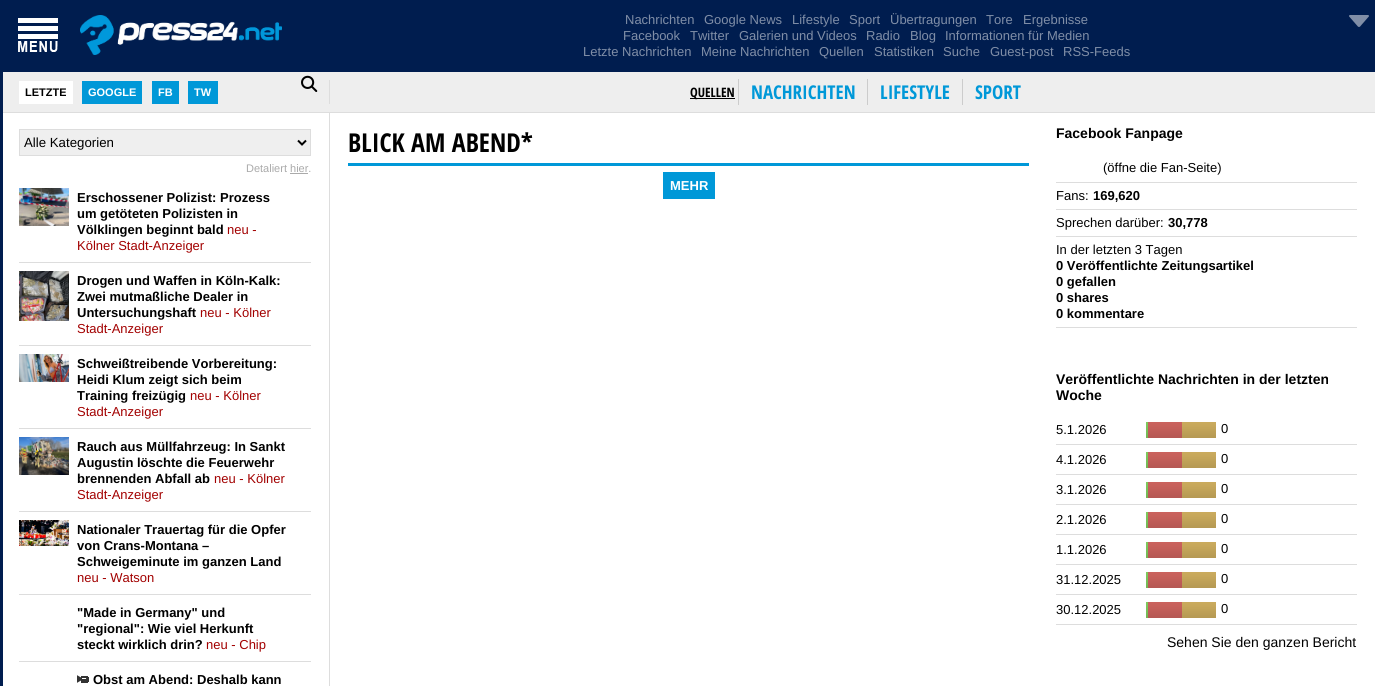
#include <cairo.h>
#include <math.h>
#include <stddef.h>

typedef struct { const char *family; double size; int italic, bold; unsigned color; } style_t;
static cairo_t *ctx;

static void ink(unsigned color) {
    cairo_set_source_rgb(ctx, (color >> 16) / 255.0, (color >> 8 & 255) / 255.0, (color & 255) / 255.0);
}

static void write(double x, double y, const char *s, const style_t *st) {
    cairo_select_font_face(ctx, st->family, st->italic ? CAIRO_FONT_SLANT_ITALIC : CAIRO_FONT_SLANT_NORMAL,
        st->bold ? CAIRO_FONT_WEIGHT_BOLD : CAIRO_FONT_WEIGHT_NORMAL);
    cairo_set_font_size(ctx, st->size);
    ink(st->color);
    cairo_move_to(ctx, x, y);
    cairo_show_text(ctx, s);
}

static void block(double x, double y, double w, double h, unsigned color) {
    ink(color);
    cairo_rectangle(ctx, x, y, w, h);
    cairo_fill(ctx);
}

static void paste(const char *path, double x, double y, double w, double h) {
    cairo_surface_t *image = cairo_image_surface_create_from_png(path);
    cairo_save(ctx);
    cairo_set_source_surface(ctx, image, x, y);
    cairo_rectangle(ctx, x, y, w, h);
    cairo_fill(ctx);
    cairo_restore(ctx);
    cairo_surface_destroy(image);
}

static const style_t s1 = {"Liberation Sans", 13, 0, 0, 0x808ea7};
static const style_t s2 = {"Liberation Sans", 11, 0, 1, 0x000000};
static const style_t s3 = {"Liberation Sans", 11, 0, 1, 0xffffff};
static const style_t s4 = {"Open Sans Condensed", 13, 0, 1, 0x000000};
static const style_t s5 = {"Open Sans Condensed", 19, 0, 1, 0x0098d8};
static const style_t s6 = {"Liberation Sans", 13.25, 0, 0, 0x000000};
static const style_t s7 = {"Liberation Sans", 11, 0, 0, 0xaaaaaa};
static const style_t s8 = {"Liberation Sans", 13, 0, 1, 0x000000};
static const style_t s9 = {"Liberation Sans", 13, 0, 0, 0xa20000};
static const style_t s10 = {"Open Sans Condensed", 26, 0, 1, 0x000000};
static const style_t s11 = {"Liberation Sans", 13, 0, 1, 0xffffff};
static const style_t s12 = {"Liberation Sans", 14, 0, 1, 0x000000};
static const style_t s13 = {"Liberation Sans", 13, 0, 0, 0x000000};
static const style_t s14 = {"Liberation Sans", 14, 0, 0, 0x000000};

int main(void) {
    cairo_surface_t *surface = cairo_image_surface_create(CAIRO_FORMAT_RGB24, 1375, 686);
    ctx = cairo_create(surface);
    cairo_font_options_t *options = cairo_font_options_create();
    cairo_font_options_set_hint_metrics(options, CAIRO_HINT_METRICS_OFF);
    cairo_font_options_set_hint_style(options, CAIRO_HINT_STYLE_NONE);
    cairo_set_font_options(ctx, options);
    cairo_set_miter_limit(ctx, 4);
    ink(0xffffff);
    cairo_paint(ctx);
    block(0, 0, 3, 686, 0x001d4f);
    block(3, 0, 1372, 72, 0x001d4f);
    paste("pic1.png", 18, 18, 40, 34);
    paste("pic2.png", 80, 15, 202, 40);
    write(625, 24, "Nachrichten", &s1);
    write(704, 24, "Google News", &s1);
    write(792, 24, "Lifestyle", &s1);
    write(849, 24, "Sport", &s1);
    write(890, 24, "Übertragungen", &s1);
    write(986, 24, "Tore", &s1);
    write(1023, 24, "Ergebnisse", &s1);
    write(623, 40, "Facebook", &s1);
    write(690, 40, "Twitter", &s1);
    write(739, 40, "Galerien und Videos", &s1);
    write(866, 40, "Radio", &s1);
    write(910, 40, "Blog", &s1);
    write(945, 40, "Informationen für Medien", &s1);
    write(583, 56, "Letzte Nachrichten", &s1);
    write(701, 56, "Meine Nachrichten", &s1);
    write(819, 56, "Quellen", &s1);
    write(874, 56, "Statistiken", &s1);
    write(943, 56, "Suche", &s1);
    write(990, 56, "Guest-post", &s1);
    write(1063, 56, "RSS-Feeds", &s1);
    paste("pic3.png", 1349, 15, 20, 12);
    block(3, 72, 1372, 40, 0xeeeeee);
    block(3, 112, 1372, 1, 0xdddddd);
    block(329, 80, 1, 24, 0xdddddd);
    block(19, 81, 54, 23, 0xffffff);
    write(25, 96, "LETZTE", &s2);
    block(82, 81, 60, 23, 0x0098d8);
    write(88, 96, "GOOGLE", &s3);
    block(152, 81, 27, 23, 0x0098d8);
    write(158, 96, "FB", &s3);
    block(188, 81, 30, 23, 0x0098d8);
    write(194, 96, "TW", &s3);
    paste("pic4.png", 301, 75, 17, 17);
    block(690, 98, 45, 1, 0x000000);
    write(690, 97, "QUELLEN", &s4);
    write(751, 99, "NACHRICHTEN", &s5);
    block(738, 79, 1, 26, 0xcccccc);
    write(880, 99, "LIFESTYLE", &s5);
    block(867, 79, 1, 26, 0xcccccc);
    write(975, 99, "SPORT", &s5);
    block(962, 79, 1, 26, 0xcccccc);
    block(329, 113, 1, 573, 0xdddddd);
    ink(0xefefef);
    cairo_rectangle(ctx, 19.5, 129.5, 291, 26);
    cairo_fill_preserve(ctx);
    ink(0xdddddd);
    cairo_set_line_width(ctx, 1);
    cairo_stroke(ctx);
    cairo_new_path(ctx);
    cairo_move_to(ctx, 298, 140.5);
    cairo_line_to(ctx, 302, 144.5);
    cairo_line_to(ctx, 306, 140.5);
    ink(0x000000);
    cairo_set_line_width(ctx, 2);
    cairo_stroke(ctx);
    write(24, 147, "Alle Kategorien", &s6);
    write(246, 172, "Detaliert hier.", &s7);
    block(290, 173, 18, 1, 0xaaaaaa);
    block(19, 262, 292, 1, 0xdddddd);
    paste("pic5.png", 19, 188, 50, 38);
    write(77, 202, "Erschossener Polizist: Prozess", &s8);
    write(77, 218, "um getöteten Polizisten in", &s8);
    write(77, 234, "Völklingen beginnt bald", &s8);
    write(227, 234, "neu -", &s9);
    write(77, 250, "Kölner Stadt-Anzeiger", &s9);
    block(19, 345, 292, 1, 0xdddddd);
    paste("pic6.png", 19, 271, 50, 50);
    write(77, 285, "Drogen und Waffen in Köln-Kalk:", &s8);
    write(77, 301, "Zwei mutmaßliche Dealer in", &s8);
    write(77, 317, "Untersuchungshaft", &s8);
    write(200, 317, "neu - Kölner", &s9);
    write(77, 333, "Stadt-Anzeiger", &s9);
    block(19, 428, 292, 1, 0xdddddd);
    paste("pic7.png", 19, 354, 50, 28);
    write(77, 368, "Schweißtreibende Vorbereitung:", &s8);
    write(77, 384, "Heidi Klum zeigt sich beim", &s8);
    write(77, 400, "Training freizügig", &s8);
    write(190, 400, "neu - Kölner", &s9);
    write(77, 416, "Stadt-Anzeiger", &s9);
    block(19, 511, 292, 1, 0xdddddd);
    paste("pic8.png", 19, 437, 50, 38);
    write(77, 451, "Rauch aus Müllfahrzeug: In Sankt", &s8);
    write(77, 467, "Augustin löschte die Feuerwehr", &s8);
    write(77, 483, "brennenden Abfall ab", &s8);
    write(214, 483, "neu - Kölner", &s9);
    write(77, 499, "Stadt-Anzeiger", &s9);
    block(19, 594, 292, 1, 0xdddddd);
    paste("pic9.png", 19, 520, 50, 26);
    write(77, 534, "Nationaler Trauertag für die Opfer", &s8);
    write(77, 550, "von Crans-Montana –", &s8);
    write(77, 566, "Schweigeminute im ganzen Land", &s8);
    write(77, 582, "neu - Watson", &s9);
    block(19, 661, 292, 1, 0xdddddd);
    write(77, 617, "\"Made in Germany\" und", &s8);
    write(77, 633, "\"regional\": Wie viel Herkunft", &s8);
    write(77, 649, "steckt wirklich drin?", &s8);
    write(206, 649, "neu - Chip", &s9);
    paste("pic10.png", 77, 675, 12, 8);
    write(93, 684, "Obst am Abend: Deshalb kann", &s8);
    block(348, 163, 681, 3, 0x0098d8);
    write(348, 152, "BLICK AM ABEND*", &s10);
    block(663, 172, 52, 27, 0x0098d8);
    write(670, 190, "MEHR", &s11);
    write(1056, 138, "Facebook Fanpage", &s12);
    block(1056, 182, 301, 1, 0xdddddd);
    write(1103, 172, "(öffne die Fan-Seite)", &s13);
    block(1056, 209, 301, 1, 0xdddddd);
    write(1056, 200, "Fans:", &s13);
    write(1093, 200, "169,620", &s8);
    block(1056, 236, 301, 1, 0xdddddd);
    write(1056, 227, "Sprechen darüber:", &s13);
    write(1168, 227, "30,778", &s8);
    block(1056, 327, 301, 1, 0xdddddd);
    write(1056, 254, "In der letzten 3 Tagen", &s13);
    write(1056, 270, "0 Veröffentlichte Zeitungsartikel", &s8);
    write(1056, 286, "0 gefallen", &s8);
    write(1056, 302, "0 shares", &s8);
    write(1056, 318, "0 kommentare", &s8);
    write(1056, 384, "Veröffentlichte Nachrichten in der letzten", &s12);
    write(1056, 400, "Woche", &s12);
    write(1056, 434, "5.1.2026", &s13);
    block(1056, 444, 301, 1, 0xdddddd);
    paste("pic11.png", 1146, 422, 2, 16);
    paste("pic12.png", 1148, 422, 34, 16);
    paste("pic13.png", 1182, 422, 34, 16);
    write(1221, 433, "0", &s13);
    write(1056, 464, "4.1.2026", &s13);
    block(1056, 474, 301, 1, 0xdddddd);
    paste("pic11.png", 1146, 452, 2, 16);
    paste("pic12.png", 1148, 452, 34, 16);
    paste("pic13.png", 1182, 452, 34, 16);
    write(1221, 463, "0", &s13);
    write(1056, 494, "3.1.2026", &s13);
    block(1056, 504, 301, 1, 0xdddddd);
    paste("pic11.png", 1146, 482, 2, 16);
    paste("pic12.png", 1148, 482, 34, 16);
    paste("pic13.png", 1182, 482, 34, 16);
    write(1221, 493, "0", &s13);
    write(1056, 524, "2.1.2026", &s13);
    block(1056, 534, 301, 1, 0xdddddd);
    paste("pic11.png", 1146, 512, 2, 16);
    paste("pic12.png", 1148, 512, 34, 16);
    paste("pic13.png", 1182, 512, 34, 16);
    write(1221, 523, "0", &s13);
    write(1056, 554, "1.1.2026", &s13);
    block(1056, 564, 301, 1, 0xdddddd);
    paste("pic11.png", 1146, 542, 2, 16);
    paste("pic12.png", 1148, 542, 34, 16);
    paste("pic13.png", 1182, 542, 34, 16);
    write(1221, 553, "0", &s13);
    write(1056, 584, "31.12.2025", &s13);
    block(1056, 594, 301, 1, 0xdddddd);
    paste("pic11.png", 1146, 572, 2, 16);
    paste("pic12.png", 1148, 572, 34, 16);
    paste("pic13.png", 1182, 572, 34, 16);
    write(1221, 583, "0", &s13);
    write(1056, 614, "30.12.2025", &s13);
    block(1056, 624, 301, 1, 0xdddddd);
    paste("pic11.png", 1146, 602, 2, 16);
    paste("pic12.png", 1148, 602, 34, 16);
    paste("pic13.png", 1182, 602, 34, 16);
    write(1221, 613, "0", &s13);
    write(1167, 647, "Sehen Sie den ganzen Bericht", &s14);
    cairo_surface_write_to_png(surface, "screenshot.png");
    cairo_font_options_destroy(options);
    cairo_destroy(ctx);
    cairo_surface_destroy(surface);
    return 0;
}
